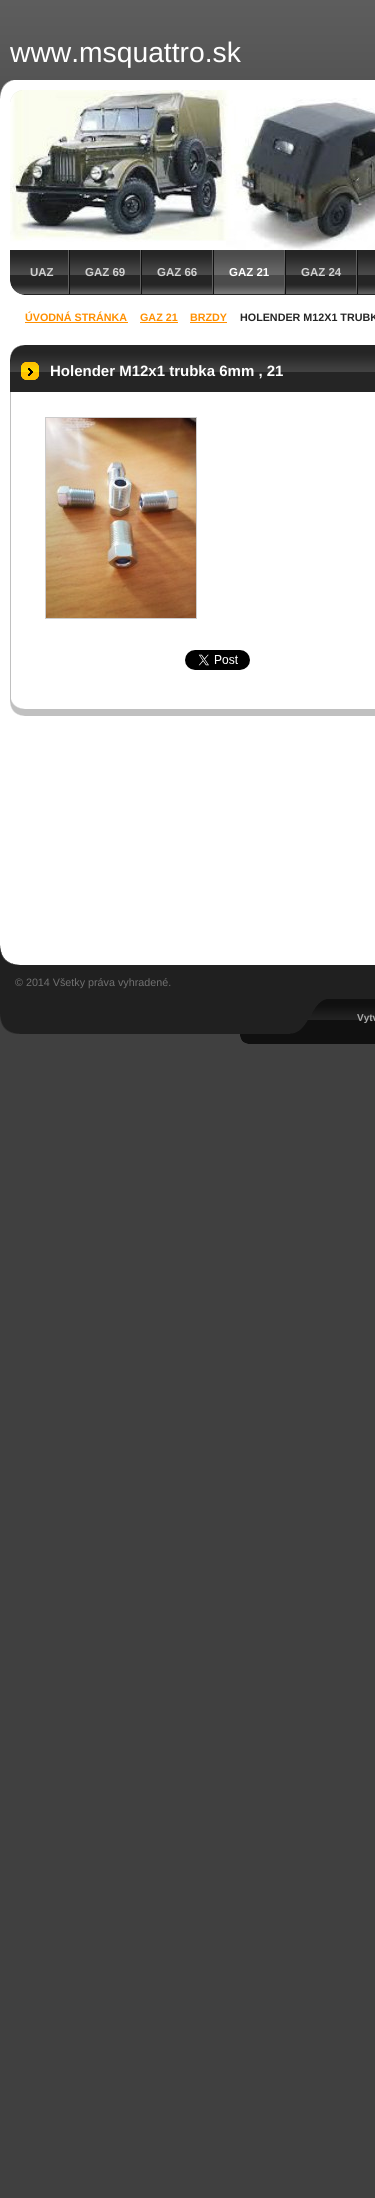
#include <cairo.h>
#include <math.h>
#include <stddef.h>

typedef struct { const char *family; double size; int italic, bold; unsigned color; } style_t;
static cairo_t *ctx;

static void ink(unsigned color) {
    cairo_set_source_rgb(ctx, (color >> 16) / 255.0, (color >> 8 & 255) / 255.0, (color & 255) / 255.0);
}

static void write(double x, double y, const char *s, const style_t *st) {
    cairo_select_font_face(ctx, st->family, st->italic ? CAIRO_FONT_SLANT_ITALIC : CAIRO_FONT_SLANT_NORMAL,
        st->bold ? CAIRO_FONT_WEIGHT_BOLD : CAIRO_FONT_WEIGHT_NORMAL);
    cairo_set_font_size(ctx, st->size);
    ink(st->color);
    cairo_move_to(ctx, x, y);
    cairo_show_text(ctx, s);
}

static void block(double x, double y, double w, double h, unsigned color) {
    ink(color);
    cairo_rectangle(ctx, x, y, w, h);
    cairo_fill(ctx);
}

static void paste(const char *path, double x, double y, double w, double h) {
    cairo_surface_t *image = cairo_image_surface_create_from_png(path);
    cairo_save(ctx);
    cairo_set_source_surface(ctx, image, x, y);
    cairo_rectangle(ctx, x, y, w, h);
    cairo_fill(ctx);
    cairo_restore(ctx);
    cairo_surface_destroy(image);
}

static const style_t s1 = {"Liberation Sans", 28.25, 0, 0, 0xffffff};
static const style_t s2 = {"Liberation Sans", 11.5, 0, 1, 0xd0d0d0};
static const style_t s3 = {"Liberation Sans", 11.5, 0, 1, 0xffffff};
static const style_t s4 = {"Liberation Sans", 10.75, 0, 1, 0xff8f00};
static const style_t s5 = {"Liberation Sans", 10.75, 0, 1, 0x252525};
static const style_t s6 = {"Liberation Sans", 15, 0, 1, 0xffffff};
static const style_t s7 = {"Liberation Sans", 10.75, 0, 0, 0x707070};
static const style_t s8 = {"Liberation Sans", 10, 0, 1, 0xaaaaaa};

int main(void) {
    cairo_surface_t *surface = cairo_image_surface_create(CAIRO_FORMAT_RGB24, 375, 2198);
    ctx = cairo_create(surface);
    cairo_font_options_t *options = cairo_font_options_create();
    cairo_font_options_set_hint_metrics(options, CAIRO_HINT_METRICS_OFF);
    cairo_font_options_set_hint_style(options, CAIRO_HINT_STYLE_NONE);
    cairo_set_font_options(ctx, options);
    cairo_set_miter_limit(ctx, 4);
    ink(0x404040);
    cairo_paint(ctx);
    paste("pic1.png", 0, 0, 375, 91);
    write(10, 62, "www.msquattro.sk", &s1);
    paste("pic2.png", 0, 80, 375, 170);
    paste("pic4.png", 10, 90, 365, 160);
    paste("pic3.png", 0, 80, 22, 22);
    paste("pic5.png", 0, 250, 375, 45);
    block(69, 250, 1, 44, 0x101010);
    block(68, 250, 1, 44, 0x5f5f5f);
    write(30, 276, "UAZ", &s2);
    block(141, 250, 1, 44, 0x101010);
    block(140, 250, 1, 44, 0x5f5f5f);
    write(85, 276, "GAZ 69", &s2);
    block(213, 250, 1, 44, 0x101010);
    block(212, 250, 1, 44, 0x5f5f5f);
    write(157, 276, "GAZ 66", &s2);
    block(285, 250, 1, 44, 0x101010);
    paste("pic6.png", 214, 250, 70, 44);
    block(284, 250, 1, 44, 0x5f5f5f);
    write(229, 276, "GAZ 21", &s3);
    block(357, 250, 1, 44, 0x101010);
    block(356, 250, 1, 44, 0x5f5f5f);
    write(301, 276, "GAZ 24", &s2);
    paste("pic7.png", 10, 281, 13, 14);
    block(0, 295, 375, 670, 0xffffff);
    write(25, 321, "ÚVODNÁ STRÁNKA", &s4);
    block(25, 322, 103, 1, 0xff8f00);
    write(140, 321, "GAZ 21", &s4);
    block(140, 322, 38, 1, 0xff8f00);
    write(190, 321, "BRZDY", &s4);
    block(190, 322, 37, 1, 0xff8f00);
    write(240, 321, "HOLENDER M12X1 TRUBK", &s5);
    paste("pic8.png", 0, 945, 20, 20);
    paste("pic9.png", 10, 345, 365, 15);
    block(25, 709, 350, 7, 0xc0c0c0);
    block(10, 392, 1, 307, 0xc0c0c0);
    paste("pic10.png", 10, 699, 15, 17);
    block(10, 380, 365, 12, 0x252525);
    paste("pic11.png", 10, 360, 365, 20);
    write(50, 376, "Holender M12x1 trubka 6mm , 21", &s6);
    cairo_rectangle(ctx, 45.5, 417.5, 151, 201);
    ink(0xcccccc);
    cairo_set_line_width(ctx, 1);
    cairo_stroke(ctx);
    paste("pic12.png", 46, 418, 150, 200);
    paste("pic13.png", 185, 650, 65, 20);
    block(0, 965, 375, 34, 0x202020);
    write(15, 986, "© 2014 Všetky práva vyhradené.", &s7);
    paste("pic14.png", 0, 999, 375, 45);
    write(357, 1021, "Vytv", &s8);
    cairo_surface_write_to_png(surface, "screenshot.png");
    cairo_font_options_destroy(options);
    cairo_destroy(ctx);
    cairo_surface_destroy(surface);
    return 0;
}
